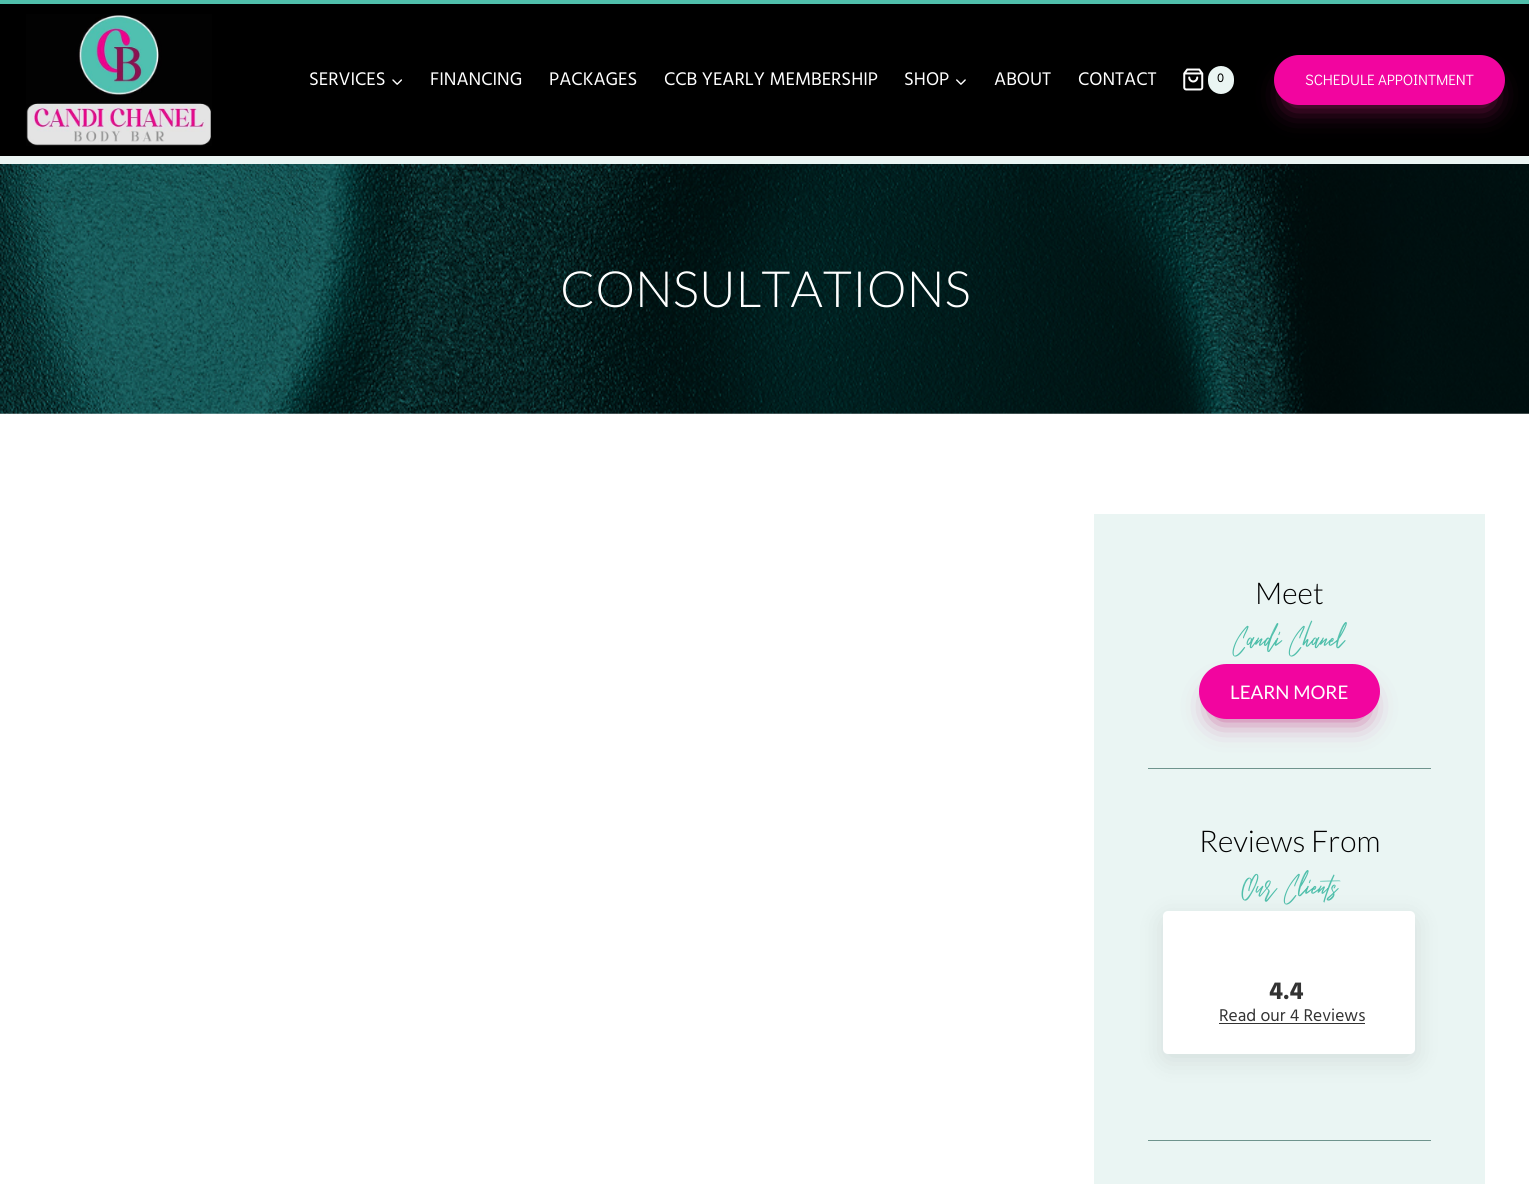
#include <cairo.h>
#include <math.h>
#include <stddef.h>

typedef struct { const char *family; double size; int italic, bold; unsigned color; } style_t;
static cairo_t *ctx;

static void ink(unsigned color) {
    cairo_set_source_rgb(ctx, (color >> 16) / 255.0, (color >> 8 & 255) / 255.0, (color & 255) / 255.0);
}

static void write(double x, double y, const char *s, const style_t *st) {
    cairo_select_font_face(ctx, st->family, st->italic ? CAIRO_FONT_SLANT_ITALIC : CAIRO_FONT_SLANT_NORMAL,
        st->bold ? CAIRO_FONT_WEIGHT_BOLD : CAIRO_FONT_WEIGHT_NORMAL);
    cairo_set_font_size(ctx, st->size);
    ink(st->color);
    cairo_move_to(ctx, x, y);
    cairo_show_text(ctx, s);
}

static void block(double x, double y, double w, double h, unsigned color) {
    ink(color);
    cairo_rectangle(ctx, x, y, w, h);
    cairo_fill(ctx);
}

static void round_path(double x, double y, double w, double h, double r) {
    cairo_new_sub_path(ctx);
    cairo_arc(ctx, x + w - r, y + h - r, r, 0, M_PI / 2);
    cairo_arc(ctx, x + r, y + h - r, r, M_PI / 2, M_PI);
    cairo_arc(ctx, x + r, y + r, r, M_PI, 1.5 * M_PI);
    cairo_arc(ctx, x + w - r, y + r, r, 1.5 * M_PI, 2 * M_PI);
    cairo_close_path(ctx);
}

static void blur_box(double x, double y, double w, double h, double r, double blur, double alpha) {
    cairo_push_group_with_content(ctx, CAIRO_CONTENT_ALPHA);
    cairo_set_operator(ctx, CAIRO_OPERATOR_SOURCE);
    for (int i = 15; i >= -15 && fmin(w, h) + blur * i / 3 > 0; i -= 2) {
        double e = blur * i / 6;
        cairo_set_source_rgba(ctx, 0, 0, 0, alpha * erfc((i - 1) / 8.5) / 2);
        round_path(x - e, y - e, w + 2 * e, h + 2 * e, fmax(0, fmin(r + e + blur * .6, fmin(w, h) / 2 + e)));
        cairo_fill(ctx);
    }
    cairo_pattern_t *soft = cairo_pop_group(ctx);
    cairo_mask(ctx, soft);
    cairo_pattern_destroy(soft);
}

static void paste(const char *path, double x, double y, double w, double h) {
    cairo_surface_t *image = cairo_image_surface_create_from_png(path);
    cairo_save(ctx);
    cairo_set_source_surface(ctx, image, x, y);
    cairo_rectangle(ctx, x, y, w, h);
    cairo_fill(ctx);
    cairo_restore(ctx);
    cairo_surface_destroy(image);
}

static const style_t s1 = {"Hind", 18.75, 0, 0, 0xffffff};
static const style_t s2 = {"Hind", 13, 0, 0, 0x000000};
static const style_t s3 = {"Didact Gothic", 15, 0, 0, 0xffffff};
static const style_t s4 = {"Lato Light", 50, 0, 0, 0xffffff};
static const style_t s5 = {"Lato Light", 30, 0, 0, 0x000000};
static const style_t s6 = {"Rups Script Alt", 30, 0, 0, 0x50bfab};
static const style_t s7 = {"Lato", 18.75, 0, 0, 0xffffff};
static const style_t s8 = {"Hind", 25, 0, 1, 0x333333};
static const style_t s9 = {"Hind", 17.5, 0, 0, 0x333333};

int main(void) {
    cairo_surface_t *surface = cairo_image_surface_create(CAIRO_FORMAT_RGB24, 1529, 1184);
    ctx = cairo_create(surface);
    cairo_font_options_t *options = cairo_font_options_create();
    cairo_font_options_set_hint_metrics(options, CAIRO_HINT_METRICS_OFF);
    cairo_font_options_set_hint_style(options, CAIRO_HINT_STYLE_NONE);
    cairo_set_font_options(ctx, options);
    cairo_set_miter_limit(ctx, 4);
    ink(0xffffff);
    cairo_paint(ctx);
    block(0, 4, 1529, 152, 0x000000);
    block(0, 0, 1529, 4, 0x50bfab);
    block(0, 156, 1529, 8, 0xeaf5f3);
    paste("pic1.png", 26, 14, 186, 132);
    write(309, 85, "SERVICES", &s1);
    paste("pic2.png", 392, 79, 10, 6);
    write(430, 85, "FINANCING", &s1);
    write(549, 85, "PACKAGES", &s1);
    write(664, 85, "CCB YEARLY MEMBERSHIP", &s1);
    write(904, 85, "SHOP", &s1);
    paste("pic3.png", 956, 79, 10, 6);
    write(994, 85, "ABOUT", &s1);
    write(1078, 85, "CONTACT", &s1);
    paste("pic4.png", 1183, 68, 21, 23);
    ink(0xeaf5f3);
    round_path(1208, 66, 26, 28, 13);
    cairo_fill(ctx);
    write(1217, 82, "0", &s2);
    ink(0xbf1b75);
    blur_box(1293, 89, 193, 12, 6, 15, 1);
    ink(0xf2059f);
    round_path(1274, 55, 231, 50, 25);
    cairo_fill(ctx);
    write(1305, 85, "SCHEDULE APPOINTMENT", &s3);
    paste("pic5.png", 0, 164, 1529, 250);
    write(560, 307, "CONSULTATIONS", &s4);
    block(1094, 514, 391, 670, 0xeaf5f3);
    write(1255, 604, "Meet", &s5);
    write(1233, 649, "Candi Chanel", &s6);
    ink(0xbf1b75);
    blur_box(1218, 698, 143, 17, 8.5, 15, 1);
    ink(0xf2059f);
    round_path(1199, 664, 181, 55, 27.5);
    cairo_fill(ctx);
    write(1230, 699, "LEARN MORE", &s7);
    block(1148, 768, 283, 1, 0x6f948d);
    write(1199, 852, "Reviews From", &s5);
    write(1241, 897, "Our Clients", &s6);
    ink(0x000000);
    blur_box(1163, 918, 252, 142, 5, 12.5, 0.1);
    ink(0xffffff);
    round_path(1163, 911, 252, 143, 5);
    cairo_fill(ctx);
    write(1269, 999, "4.4", &s8);
    write(1219, 1021, "Read our 4 Reviews", &s9);
    block(1219, 1023, 146, 1, 0x333333);
    block(1148, 1140, 283, 1, 0x6f948d);
    cairo_surface_write_to_png(surface, "screenshot.png");
    cairo_font_options_destroy(options);
    cairo_destroy(ctx);
    cairo_surface_destroy(surface);
    return 0;
}
